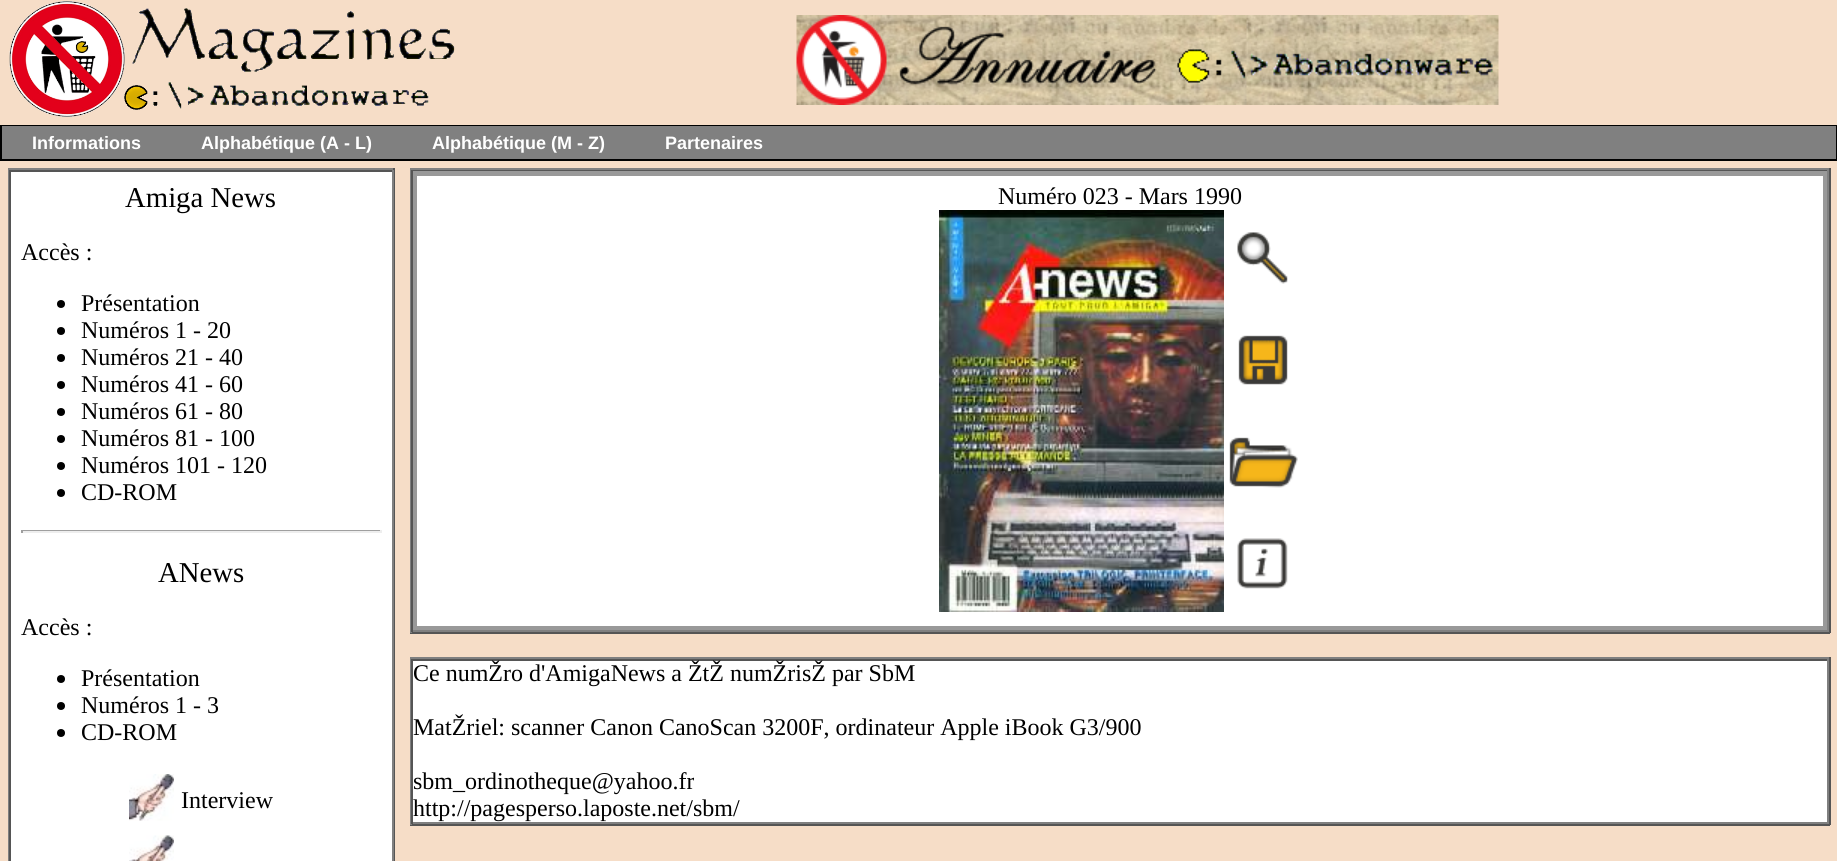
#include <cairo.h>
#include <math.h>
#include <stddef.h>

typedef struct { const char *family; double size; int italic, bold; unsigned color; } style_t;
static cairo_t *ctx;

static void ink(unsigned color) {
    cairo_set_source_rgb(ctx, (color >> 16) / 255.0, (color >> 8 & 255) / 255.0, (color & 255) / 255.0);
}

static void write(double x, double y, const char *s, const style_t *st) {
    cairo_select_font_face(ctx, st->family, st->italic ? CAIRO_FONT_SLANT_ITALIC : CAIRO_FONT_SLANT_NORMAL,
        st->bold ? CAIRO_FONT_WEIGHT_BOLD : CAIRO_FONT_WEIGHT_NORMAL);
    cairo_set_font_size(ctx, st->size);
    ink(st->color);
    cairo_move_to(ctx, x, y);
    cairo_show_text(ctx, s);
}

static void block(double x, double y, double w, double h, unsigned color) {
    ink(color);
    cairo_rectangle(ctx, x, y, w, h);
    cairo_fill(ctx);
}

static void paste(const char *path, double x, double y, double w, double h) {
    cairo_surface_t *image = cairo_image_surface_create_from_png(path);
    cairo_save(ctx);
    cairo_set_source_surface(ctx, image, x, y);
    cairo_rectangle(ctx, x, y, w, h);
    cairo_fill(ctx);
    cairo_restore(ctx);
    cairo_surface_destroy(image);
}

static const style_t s1 = {"Liberation Sans", 18, 0, 1, 0xffffff};
static const style_t s2 = {"Liberation Serif", 28.75, 0, 0, 0x000000};
static const style_t s3 = {"Liberation Serif", 24, 0, 0, 0x000000};

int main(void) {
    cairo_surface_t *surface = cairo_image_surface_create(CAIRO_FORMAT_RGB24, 1837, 861);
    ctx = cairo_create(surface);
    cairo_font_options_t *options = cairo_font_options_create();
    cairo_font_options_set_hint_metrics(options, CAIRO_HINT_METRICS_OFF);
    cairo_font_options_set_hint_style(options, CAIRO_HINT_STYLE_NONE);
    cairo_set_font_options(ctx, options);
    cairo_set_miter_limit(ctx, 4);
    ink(0xf6ddc7);
    cairo_paint(ctx);
    paste("pic1.png", 9, 1, 446, 116);
    paste("pic2.png", 796, 15, 703, 90);
    block(0, 125, 1837, 36, 0x000000);
    block(2, 126, 1834, 33, 0x808080);
    write(32, 149, "Informations", &s1);
    write(201, 149, "Alphabétique (A - L)", &s1);
    write(432, 149, "Alphabétique (M - Z)", &s1);
    write(665, 149, "Partenaires", &s1);
    block(8, 168, 387, 2, 0x808080);
    block(393, 168, 2, 693, 0x555555);
    block(8, 168, 2, 693, 0x808080);
    block(11, 172, 381, 689, 0xffffff);
    block(9, 170, 384, 2, 0x555555);
    block(392, 170, 2, 691, 0x808080);
    block(9, 170, 2, 691, 0x555555);
    write(125, 207, "Amiga News", &s2);
    write(21, 260, "Accès :", &s3);
    cairo_new_path(ctx);
    cairo_arc(ctx, 61, 304, 4, 0, 2 * M_PI);
    cairo_fill(ctx);
    write(81, 311, "Présentation", &s3);
    cairo_new_path(ctx);
    cairo_arc(ctx, 61, 331, 4, 0, 2 * M_PI);
    cairo_fill(ctx);
    write(81, 338, "Numéros 1 - 20", &s3);
    cairo_new_path(ctx);
    cairo_arc(ctx, 61, 358, 4, 0, 2 * M_PI);
    cairo_fill(ctx);
    write(81, 365, "Numéros 21 - 40", &s3);
    cairo_new_path(ctx);
    cairo_arc(ctx, 61, 385, 4, 0, 2 * M_PI);
    cairo_fill(ctx);
    write(81, 392, "Numéros 41 - 60", &s3);
    cairo_new_path(ctx);
    cairo_arc(ctx, 61, 412, 4, 0, 2 * M_PI);
    cairo_fill(ctx);
    write(81, 419, "Numéros 61 - 80", &s3);
    cairo_new_path(ctx);
    cairo_arc(ctx, 61, 439, 4, 0, 2 * M_PI);
    cairo_fill(ctx);
    write(81, 446, "Numéros 81 - 100", &s3);
    cairo_new_path(ctx);
    cairo_arc(ctx, 61, 466, 4, 0, 2 * M_PI);
    cairo_fill(ctx);
    write(81, 473, "Numéros 101 - 120", &s3);
    cairo_new_path(ctx);
    cairo_arc(ctx, 61, 493, 4, 0, 2 * M_PI);
    cairo_fill(ctx);
    write(81, 500, "CD-ROM", &s3);
    block(21, 530, 360, 1, 0x9f9f9f);
    block(380, 530, 2, 3, 0xeeeeee);
    block(21, 531, 360, 2, 0xeeeeee);
    block(21, 530, 2, 3, 0x9f9f9f);
    write(158, 582, "ANews", &s2);
    write(21, 635, "Accès :", &s3);
    cairo_new_path(ctx);
    cairo_arc(ctx, 61, 679, 4, 0, 2 * M_PI);
    cairo_fill(ctx);
    write(81, 686, "Présentation", &s3);
    cairo_new_path(ctx);
    cairo_arc(ctx, 61, 706, 4, 0, 2 * M_PI);
    cairo_fill(ctx);
    write(81, 713, "Numéros 1 - 3", &s3);
    cairo_new_path(ctx);
    cairo_arc(ctx, 61, 733, 4, 0, 2 * M_PI);
    cairo_fill(ctx);
    write(81, 740, "CD-ROM", &s3);
    paste("pic3.png", 129, 774, 45, 47);
    write(181, 808, "Interview", &s3);
    paste("pic4.png", 129, 835, 45, 26);
    block(410, 168, 1420, 2, 0x808080);
    block(1829, 168, 2, 465, 0x555555);
    block(410, 632, 1420, 2, 0x555555);
    block(410, 168, 2, 465, 0x808080);
    block(411, 170, 1418, 1, 0x555555);
    block(1827, 170, 2, 462, 0x808080);
    block(411, 630, 1418, 2, 0x808080);
    block(411, 170, 2, 462, 0x555555);
    cairo_rectangle(ctx, 415.5, 173.5, 1409, 454);
    ink(0x999999);
    cairo_set_line_width(ctx, 5);
    cairo_stroke(ctx);
    block(417, 176, 1406, 450, 0xffffff);
    write(998, 204, "Numéro 023 - Mars 1990", &s3);
    paste("pic5.png", 939, 210, 285, 402);
    paste("pic6.png", 1237, 232, 51, 52);
    paste("pic7.png", 1238, 335, 50, 50);
    paste("pic8.png", 1229, 437, 69, 51);
    paste("pic9.png", 1237, 538, 51, 51);
    block(410, 657, 1420, 2, 0x808080);
    block(1829, 657, 2, 168, 0x555555);
    block(410, 824, 1420, 2, 0x555555);
    block(410, 657, 2, 168, 0x808080);
    block(413, 661, 1414, 161, 0xffffff);
    block(411, 659, 1418, 2, 0x555555);
    block(1827, 659, 2, 165, 0x808080);
    block(411, 822, 1418, 2, 0x808080);
    block(411, 659, 2, 165, 0x555555);
    write(413, 681, "Ce numŽro d'AmigaNews a ŽtŽ numŽrisŽ par SbM", &s3);
    write(413, 735, "MatŽriel: scanner Canon CanoScan 3200F, ordinateur Apple iBook G3/900", &s3);
    write(413, 789, "sbm_ordinotheque@yahoo.fr", &s3);
    write(413, 816, "http://pagesperso.laposte.net/sbm/", &s3);
    cairo_surface_write_to_png(surface, "screenshot.png");
    cairo_font_options_destroy(options);
    cairo_destroy(ctx);
    cairo_surface_destroy(surface);
    return 0;
}
